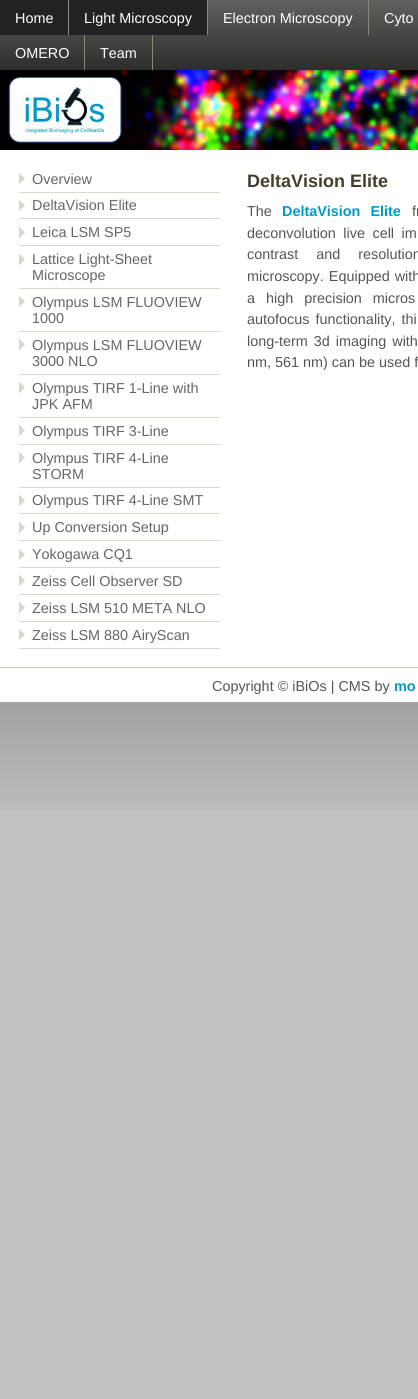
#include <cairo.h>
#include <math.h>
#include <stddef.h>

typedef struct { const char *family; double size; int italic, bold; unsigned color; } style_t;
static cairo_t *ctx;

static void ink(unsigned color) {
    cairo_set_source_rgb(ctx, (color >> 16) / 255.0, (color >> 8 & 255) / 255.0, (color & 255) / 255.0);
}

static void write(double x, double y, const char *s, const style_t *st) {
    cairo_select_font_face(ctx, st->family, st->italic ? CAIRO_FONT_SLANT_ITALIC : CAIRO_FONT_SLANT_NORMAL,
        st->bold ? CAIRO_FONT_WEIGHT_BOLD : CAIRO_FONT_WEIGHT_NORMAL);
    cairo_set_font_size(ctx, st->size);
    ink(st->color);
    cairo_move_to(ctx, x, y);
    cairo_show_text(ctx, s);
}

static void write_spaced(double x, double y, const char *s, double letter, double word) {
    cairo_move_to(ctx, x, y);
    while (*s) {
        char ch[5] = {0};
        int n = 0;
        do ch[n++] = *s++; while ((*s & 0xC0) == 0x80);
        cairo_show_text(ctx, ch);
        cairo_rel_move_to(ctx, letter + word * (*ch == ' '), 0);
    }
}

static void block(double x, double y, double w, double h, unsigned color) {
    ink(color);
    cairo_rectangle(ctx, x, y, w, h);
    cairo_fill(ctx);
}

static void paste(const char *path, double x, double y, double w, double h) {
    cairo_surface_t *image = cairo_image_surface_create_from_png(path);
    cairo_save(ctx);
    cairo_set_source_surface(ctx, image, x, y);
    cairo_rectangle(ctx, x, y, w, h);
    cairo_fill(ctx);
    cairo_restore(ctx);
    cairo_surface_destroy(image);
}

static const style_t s1 = {"Liberation Sans", 14.4, 0, 0, 0xffffff};
static const style_t s2 = {"Liberation Sans", 14.4, 0, 0, 0x666666};
static const style_t s3 = {"Liberation Sans", 18, 0, 1, 0x463e28};
static const style_t s4 = {"Liberation Sans", 14.4, 0, 0, 0x555555};
static const style_t s5 = {"Liberation Sans", 14.4, 0, 1, 0x0099cc};

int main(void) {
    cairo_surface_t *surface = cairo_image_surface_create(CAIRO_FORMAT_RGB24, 418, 1399);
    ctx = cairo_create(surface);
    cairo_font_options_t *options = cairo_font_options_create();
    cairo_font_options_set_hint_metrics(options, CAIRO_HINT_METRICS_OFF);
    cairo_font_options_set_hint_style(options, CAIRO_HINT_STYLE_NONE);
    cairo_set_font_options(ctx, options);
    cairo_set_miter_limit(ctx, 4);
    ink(0xc1c1c1);
    cairo_paint(ctx);
    paste("pic1.png", 0, 702, 418, 109);
    block(0, 150, 418, 552, 0xffffff);
    paste("pic2.png", 0, 0, 418, 70);
    block(0, 0, 68, 35, 0x222222);
    block(68, 0, 1, 35, 0x898977);
    write(15, 23, "Home", &s1);
    block(69, 0, 138, 35, 0x222222);
    block(207, 0, 1, 35, 0x898977);
    write(84, 23, "Light Microscopy", &s1);
    block(368, 0, 1, 35, 0x898977);
    write(223, 23, "Electron Microscopy", &s1);
    write(384, 23, "Cyto", &s1);
    block(84, 35, 1, 35, 0x898977);
    write(15, 58, "OMERO", &s1);
    block(152, 35, 1, 35, 0x898977);
    write(100, 58, "Team", &s1);
    paste("pic3.png", 0, 70, 418, 80);
    paste("pic4.png", 19, 173, 6, 11);
    block(19, 192, 201, 1, 0xd6d9c9);
    write(32, 184, "Overview", &s2);
    paste("pic4.png", 19, 200, 6, 11);
    block(19, 218, 201, 1, 0xd6d9c9);
    write(32, 210, "DeltaVision Elite", &s2);
    paste("pic4.png", 19, 227, 6, 11);
    block(19, 245, 201, 1, 0xd6d9c9);
    write(32, 237, "Leica LSM SP5", &s2);
    paste("pic4.png", 19, 254, 6, 11);
    block(19, 288, 201, 1, 0xd6d9c9);
    write(32, 264, "Lattice Light-Sheet", &s2);
    write(32, 280, "Microscope", &s2);
    paste("pic4.png", 19, 296, 6, 11);
    block(19, 331, 201, 1, 0xd6d9c9);
    write(32, 307, "Olympus LSM FLUOVIEW", &s2);
    write(32, 323, "1000", &s2);
    paste("pic4.png", 19, 339, 6, 11);
    block(19, 374, 201, 1, 0xd6d9c9);
    write(32, 350, "Olympus LSM FLUOVIEW", &s2);
    write(32, 366, "3000 NLO", &s2);
    paste("pic4.png", 19, 382, 6, 11);
    block(19, 417, 201, 1, 0xd6d9c9);
    write(32, 393, "Olympus TIRF 1-Line with", &s2);
    write(32, 409, "JPK AFM", &s2);
    paste("pic4.png", 19, 425, 6, 11);
    block(19, 444, 201, 1, 0xd6d9c9);
    write(32, 436, "Olympus TIRF 3-Line", &s2);
    paste("pic4.png", 19, 452, 6, 11);
    block(19, 487, 201, 1, 0xd6d9c9);
    write(32, 463, "Olympus TIRF 4-Line", &s2);
    write(32, 479, "STORM", &s2);
    paste("pic4.png", 19, 495, 6, 11);
    block(19, 513, 201, 1, 0xd6d9c9);
    write(32, 505, "Olympus TIRF 4-Line SMT", &s2);
    paste("pic4.png", 19, 522, 6, 11);
    block(19, 540, 201, 1, 0xd6d9c9);
    write(32, 532, "Up Conversion Setup", &s2);
    paste("pic4.png", 19, 549, 6, 11);
    block(19, 567, 201, 1, 0xd6d9c9);
    write(32, 559, "Yokogawa CQ1", &s2);
    paste("pic4.png", 19, 575, 6, 11);
    block(19, 594, 201, 1, 0xd6d9c9);
    write(32, 586, "Zeiss Cell Observer SD", &s2);
    paste("pic4.png", 19, 602, 6, 11);
    block(19, 621, 201, 1, 0xd6d9c9);
    write(32, 613, "Zeiss LSM 510 META NLO", &s2);
    paste("pic4.png", 19, 629, 6, 11);
    block(19, 648, 201, 1, 0xd6d9c9);
    write(32, 640, "Zeiss LSM 880 AiryScan", &s2);
    write(247, 187, "DeltaVision Elite", &s3);
    write(247, 216, "The", &s4);
    cairo_select_font_face(ctx, "Liberation Sans", CAIRO_FONT_SLANT_NORMAL, CAIRO_FONT_WEIGHT_BOLD);
    ink(0x0099cc);
    write_spaced(282, 216, "DeltaVision Elite", 0, 6);
    cairo_select_font_face(ctx, "Liberation Sans", CAIRO_FONT_SLANT_NORMAL, CAIRO_FONT_WEIGHT_NORMAL);
    ink(0x555555);
    write_spaced(412, 216, "fr", 0, 6);
    write_spaced(247, 238, "deconvolution live cell im", 0, 3.5);
    write_spaced(247, 259, "contrast and resolution", 0, 14);
    write_spaced(247, 281, "microscopy. Equipped with", 0, 1);
    write_spaced(247, 303, "a high precision micros", 0, 7);
    write_spaced(247, 324, "autofocus functionality, thi", 0, 2);
    write_spaced(247, 346, "long-term 3d imaging with", 0, 2);
    write(247, 367, "nm, 561 nm) can be used f", &s4);
    block(0, 667, 418, 1, 0xccd0ba);
    write(212, 691, "Copyright © iBiOs | CMS by", &s4);
    write(394, 691, "mo", &s5);
    cairo_surface_write_to_png(surface, "screenshot.png");
    cairo_font_options_destroy(options);
    cairo_destroy(ctx);
    cairo_surface_destroy(surface);
    return 0;
}
